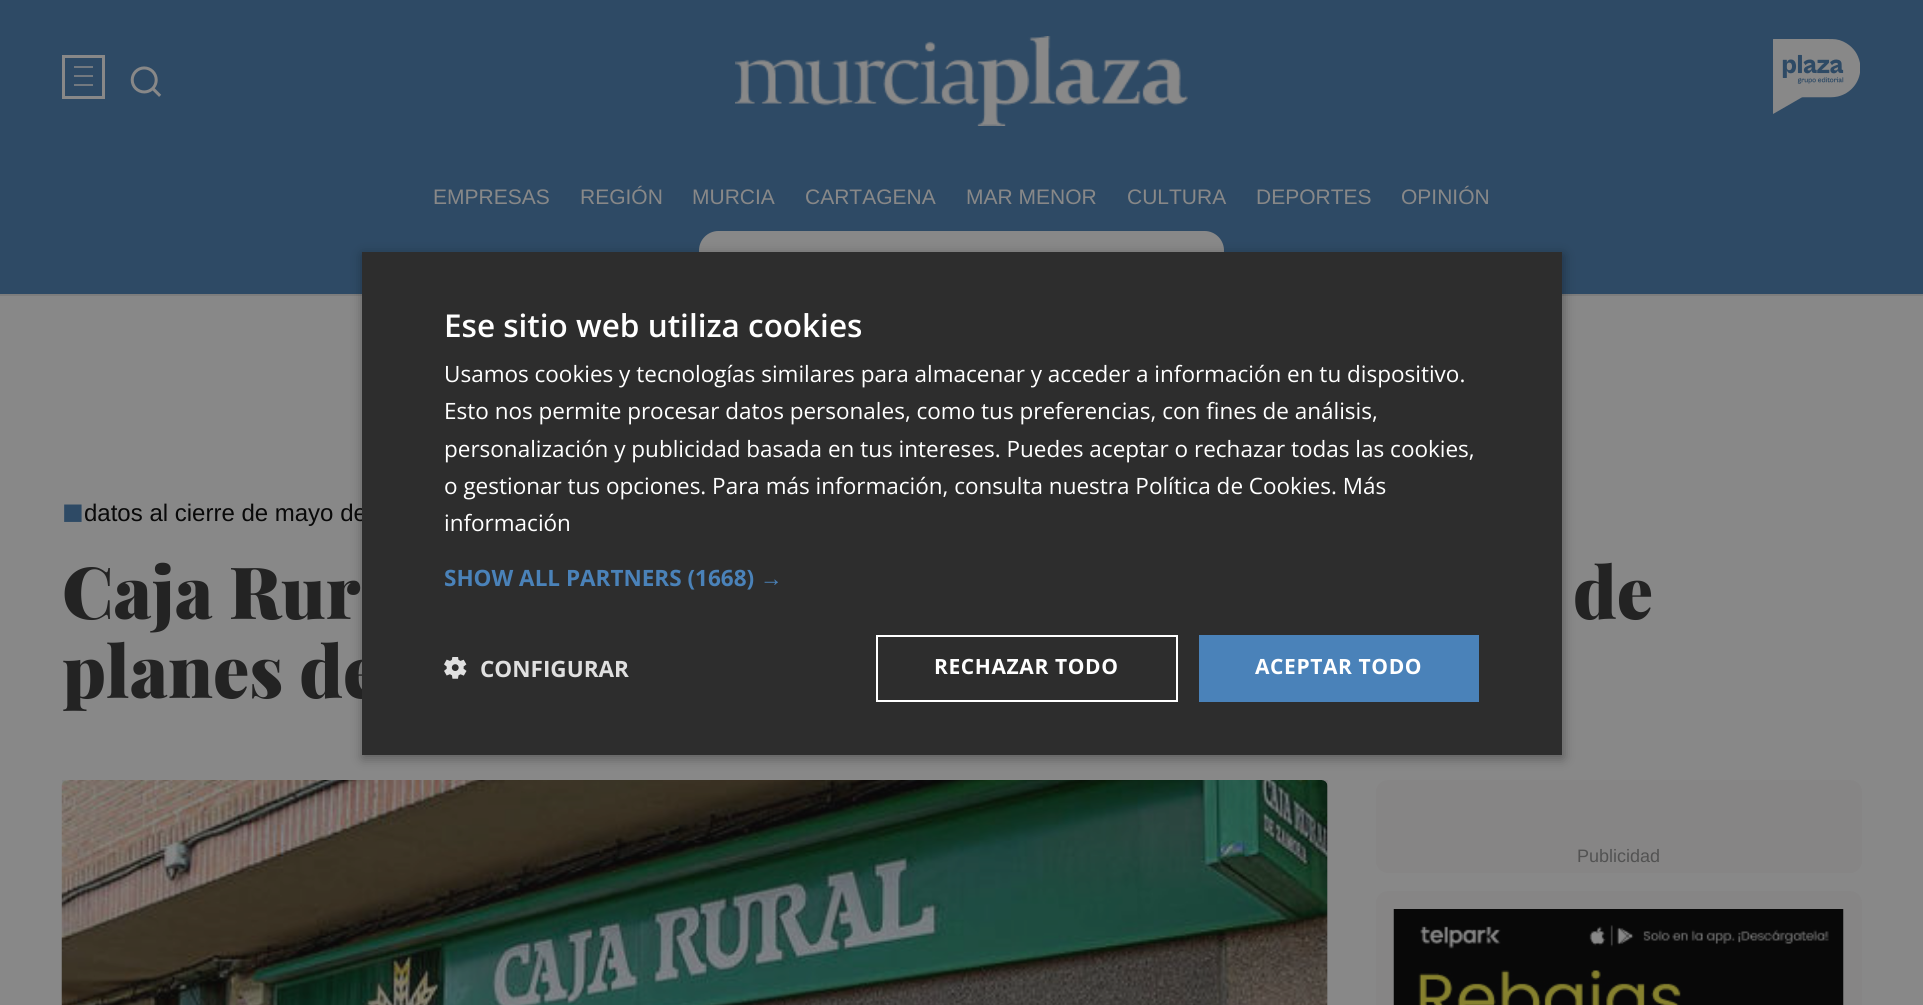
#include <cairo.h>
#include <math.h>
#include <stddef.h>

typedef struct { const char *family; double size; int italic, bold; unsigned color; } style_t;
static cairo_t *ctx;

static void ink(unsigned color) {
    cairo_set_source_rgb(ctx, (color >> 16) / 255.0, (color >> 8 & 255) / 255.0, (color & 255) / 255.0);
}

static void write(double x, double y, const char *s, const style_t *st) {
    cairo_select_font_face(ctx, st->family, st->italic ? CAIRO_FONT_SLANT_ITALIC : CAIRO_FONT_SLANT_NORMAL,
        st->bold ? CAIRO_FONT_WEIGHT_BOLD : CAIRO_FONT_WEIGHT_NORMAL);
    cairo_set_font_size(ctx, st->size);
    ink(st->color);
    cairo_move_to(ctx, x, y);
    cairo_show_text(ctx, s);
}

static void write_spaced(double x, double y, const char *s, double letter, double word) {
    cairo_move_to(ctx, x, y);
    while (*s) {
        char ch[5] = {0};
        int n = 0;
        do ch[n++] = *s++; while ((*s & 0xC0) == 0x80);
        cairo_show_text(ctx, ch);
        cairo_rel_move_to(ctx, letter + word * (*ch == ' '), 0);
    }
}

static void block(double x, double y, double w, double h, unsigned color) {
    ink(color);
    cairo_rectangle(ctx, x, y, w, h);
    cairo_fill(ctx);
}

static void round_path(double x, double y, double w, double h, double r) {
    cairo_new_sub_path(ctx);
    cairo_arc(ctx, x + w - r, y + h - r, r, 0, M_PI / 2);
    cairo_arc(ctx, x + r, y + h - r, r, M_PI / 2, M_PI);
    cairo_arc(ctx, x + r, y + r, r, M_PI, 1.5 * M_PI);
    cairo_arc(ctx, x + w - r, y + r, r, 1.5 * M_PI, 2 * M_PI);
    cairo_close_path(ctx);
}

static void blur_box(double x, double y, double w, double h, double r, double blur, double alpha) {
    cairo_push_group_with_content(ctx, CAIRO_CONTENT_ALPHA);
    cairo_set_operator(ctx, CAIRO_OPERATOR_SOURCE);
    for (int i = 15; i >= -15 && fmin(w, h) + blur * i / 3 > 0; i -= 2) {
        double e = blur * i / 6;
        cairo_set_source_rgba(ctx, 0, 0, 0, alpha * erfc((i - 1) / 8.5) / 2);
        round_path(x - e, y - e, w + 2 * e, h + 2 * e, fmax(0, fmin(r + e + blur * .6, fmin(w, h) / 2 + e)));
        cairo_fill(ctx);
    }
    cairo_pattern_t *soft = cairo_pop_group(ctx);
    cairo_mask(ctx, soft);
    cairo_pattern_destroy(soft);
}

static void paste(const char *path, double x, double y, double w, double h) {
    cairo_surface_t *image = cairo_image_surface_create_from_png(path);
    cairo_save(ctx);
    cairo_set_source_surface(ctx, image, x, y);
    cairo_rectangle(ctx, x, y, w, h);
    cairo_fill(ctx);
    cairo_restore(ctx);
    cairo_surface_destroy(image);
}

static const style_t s1 = {"Liberation Sans", 21, 0, 0, 0x888888};
static const style_t s2 = {"Liberation Sans", 24, 0, 0, 0x090909};
static const style_t s3 = {"Playfair Display Black", 72, 0, 0, 0x232323};
static const style_t s4 = {"Open Sans SemiBold", 31.5, 0, 0, 0xffffff};
static const style_t s5 = {"Open Sans", 22.5, 0, 0, 0xffffff};
static const style_t s6 = {"Open Sans", 22.5, 0, 1, 0x4a82b9};
static const style_t s7 = {"Liberation Sans", 22.5, 0, 1, 0x4a82b9};
static const style_t s8 = {"Open Sans", 22.5, 0, 1, 0xe0e0e0};
static const style_t s9 = {"Liberation Sans", 36, 0, 0, 0x2e4a65};
static const style_t s10 = {"Liberation Sans", 18, 0, 0, 0x525252};

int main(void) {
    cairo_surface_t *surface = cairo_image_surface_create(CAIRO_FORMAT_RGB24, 1923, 1005);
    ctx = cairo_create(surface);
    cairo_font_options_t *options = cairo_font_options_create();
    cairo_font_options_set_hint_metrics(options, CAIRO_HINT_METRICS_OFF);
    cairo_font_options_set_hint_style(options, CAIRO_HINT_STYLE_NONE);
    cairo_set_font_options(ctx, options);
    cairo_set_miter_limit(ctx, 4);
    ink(0x888888);
    cairo_paint(ctx);
    block(0, 0, 1923, 294, 0x2e4a65);
    block(0, 294, 1923, 2, 0x7d7d7d);
    cairo_rectangle(ctx, 63.5, 56.5, 40, 41);
    ink(0x888888);
    cairo_set_line_width(ctx, 3);
    cairo_stroke(ctx);
    block(74, 66, 19, 2, 0x727980);
    block(74, 75, 19, 2, 0x727980);
    block(74, 84, 19, 2, 0x727980);
    paste("pic1.png", 130, 66, 32, 31);
    paste("pic2.png", 735, 36, 453, 90);
    paste("pic3.png", 1773, 39, 87, 75);
    write(433, 204, "EMPRESAS", &s1);
    write(580, 204, "REGIÓN", &s1);
    write(692, 204, "MURCIA", &s1);
    write(805, 204, "CARTAGENA", &s1);
    write(966, 204, "MAR MENOR", &s1);
    write(1127, 204, "CULTURA", &s1);
    write(1256, 204, "DEPORTES", &s1);
    write(1401, 204, "OPINIÓN", &s1);
    round_path(699, 231, 525, 39, 19.5);
    cairo_fill(ctx);
    ink(0x000000);
    blur_box(363, 255, 1200, 503, 0, 6, 0.35);
    write(84, 521, "datos al cierre de mayo de", &s2);
    write(62, 698, "planes de", &s3);
    block(362, 252, 1200, 503, 0x2d2d2d);
    write(444, 337, "Ese sitio web utiliza cookies", &s4);
    write(444, 382, "Usamos cookies y tecnologías similares para almacenar y acceder a información en tu dispositivo.", &s5);
    write(444, 419, "Esto nos permite procesar datos personales, como tus preferencias, con fines de análisis,", &s5);
    write(444, 457, "personalización y publicidad basada en tus intereses. Puedes aceptar o rechazar todas las cookies,", &s5);
    write(444, 494, "o gestionar tus opciones. Para más información, consulta nuestra Política de Cookies. Más", &s5);
    write(444, 531, "información", &s5);
    write(444, 586, "SHOW ALL PARTNERS (1668)", &s6);
    write(760, 586, "→", &s7);
    paste("pic4.png", 444, 657, 23, 22);
    write(480, 677, "CONFIGURAR", &s8);
    cairo_rectangle(ctx, 877, 636, 300, 65);
    ink(0xffffff);
    cairo_set_line_width(ctx, 2);
    cairo_stroke(ctx);
    cairo_set_font_size(ctx, 21);
    write_spaced(934, 674, "RECHAZAR TODO", 0.6, 0);
    block(1199, 635, 280, 67, 0x4a82b9);
    ink(0xffffff);
    write_spaced(1255, 674, "ACEPTAR TODO", 0.6, 0);
    write(62, 524, "■", &s9);
    write(62, 619, "Caja Rur", &s3);
    write(1573, 619, "de", &s3);
    block(62, 780, 1266, 225, 0x818181);
    paste("pic5.png", 61, 780, 1267, 225);
    ink(0x868585);
    round_path(1376, 780, 486, 93, 12);
    cairo_fill(ctx);
    write(1577, 862, "Publicidad", &s10);
    ink(0x868585);
    round_path(1376, 891, 486, 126, 12);
    cairo_fill(ctx);
    paste("pic6.png", 1393, 909, 451, 96);
    cairo_surface_write_to_png(surface, "screenshot.png");
    cairo_font_options_destroy(options);
    cairo_destroy(ctx);
    cairo_surface_destroy(surface);
    return 0;
}
